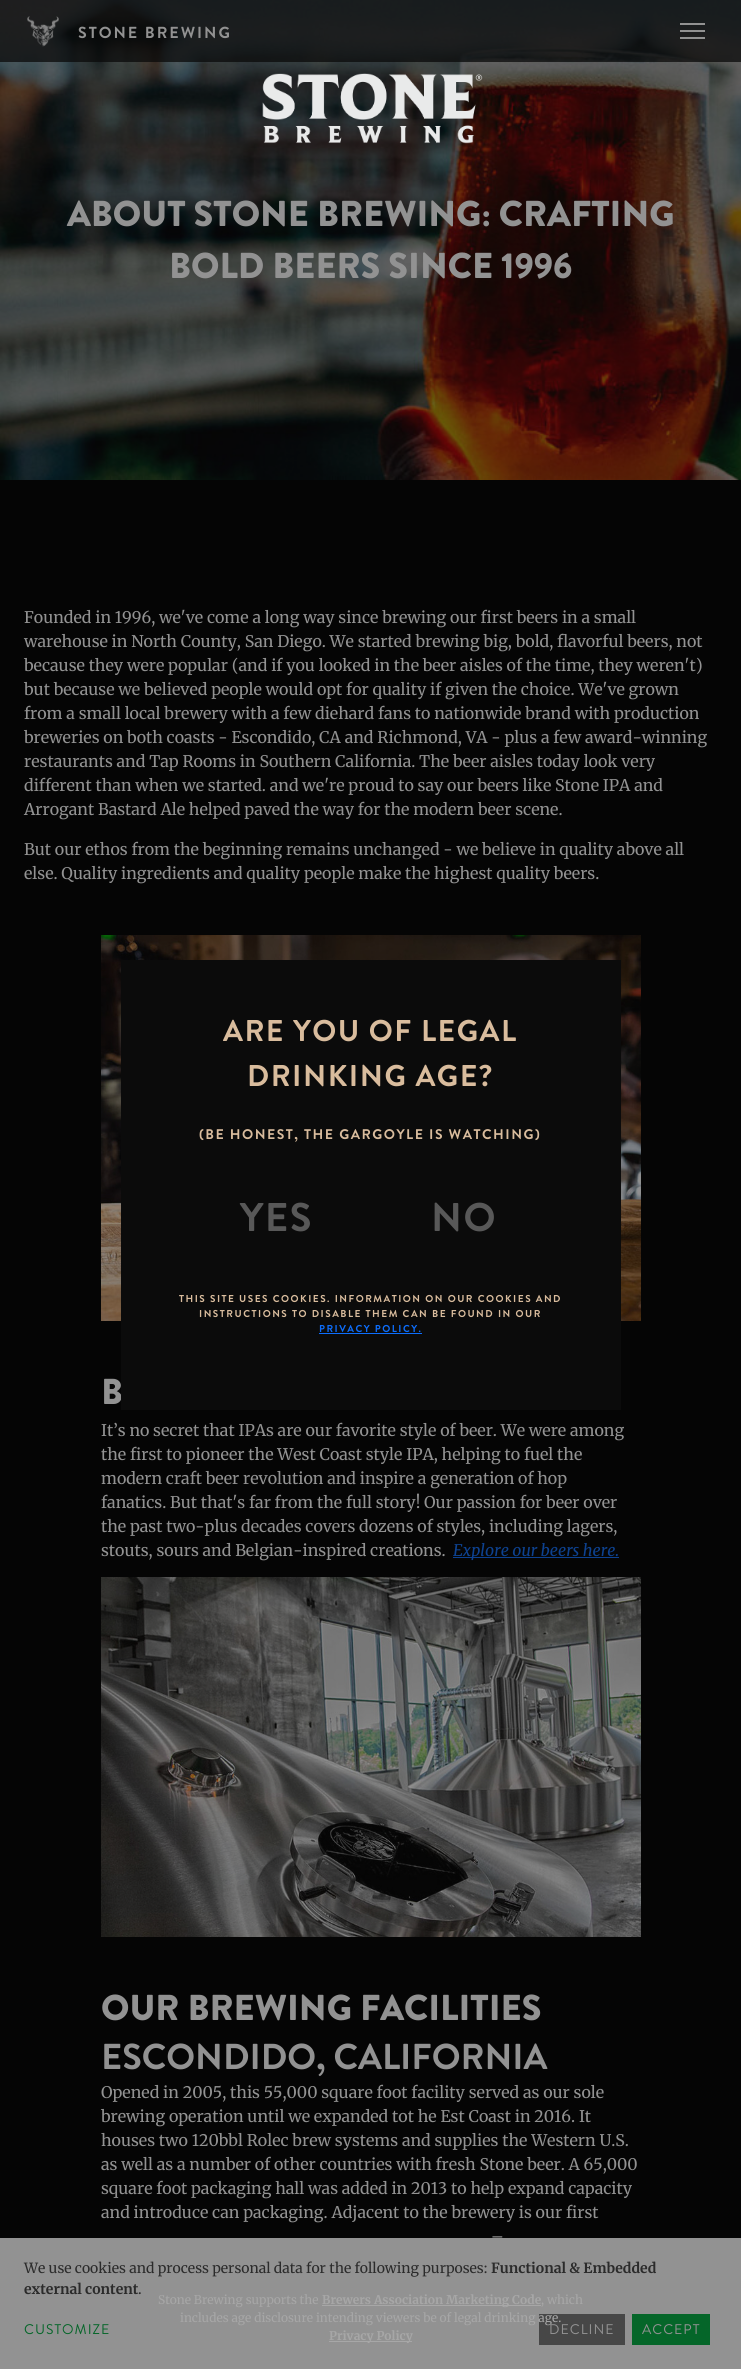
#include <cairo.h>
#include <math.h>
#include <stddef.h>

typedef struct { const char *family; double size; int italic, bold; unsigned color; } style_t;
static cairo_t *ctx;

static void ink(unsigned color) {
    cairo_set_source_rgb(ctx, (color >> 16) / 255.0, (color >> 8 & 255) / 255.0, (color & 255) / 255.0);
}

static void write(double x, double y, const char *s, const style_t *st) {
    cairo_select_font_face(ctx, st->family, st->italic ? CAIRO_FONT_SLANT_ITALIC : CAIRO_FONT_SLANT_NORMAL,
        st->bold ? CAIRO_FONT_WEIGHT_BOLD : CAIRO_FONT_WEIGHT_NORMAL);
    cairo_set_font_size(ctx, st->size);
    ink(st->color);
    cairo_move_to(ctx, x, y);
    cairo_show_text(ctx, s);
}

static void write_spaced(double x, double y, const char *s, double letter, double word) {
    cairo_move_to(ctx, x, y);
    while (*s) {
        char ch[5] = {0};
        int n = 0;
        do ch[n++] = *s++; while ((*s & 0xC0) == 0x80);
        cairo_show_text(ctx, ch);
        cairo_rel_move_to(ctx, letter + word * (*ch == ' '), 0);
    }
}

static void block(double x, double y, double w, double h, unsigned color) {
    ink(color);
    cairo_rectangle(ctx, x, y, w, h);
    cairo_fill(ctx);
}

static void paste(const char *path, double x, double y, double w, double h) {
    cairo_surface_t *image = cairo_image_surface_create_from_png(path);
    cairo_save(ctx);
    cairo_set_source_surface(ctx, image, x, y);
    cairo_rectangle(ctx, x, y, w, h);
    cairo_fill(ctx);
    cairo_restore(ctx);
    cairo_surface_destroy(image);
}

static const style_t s1 = {"Brandon Grotesque Black", 36, 0, 0, 0x929292};
static const style_t s2 = {"Merriweather", 16, 0, 0, 0x929292};
static const style_t s3 = {"Merriweather", 16, 1, 0, 0x0d4291};
static const style_t s4 = {"Brandon Grotesque", 36, 0, 1, 0x929292};
static const style_t s5 = {"Merriweather", 12, 0, 0, 0xa7a7a7};
static const style_t s6 = {"Merriweather", 12, 0, 1, 0xa7a7a7};
static const style_t s7 = {"Merriweather", 14, 0, 0, 0x2b2b2b};
static const style_t s8 = {"Merriweather", 14, 0, 1, 0x2b2b2b};

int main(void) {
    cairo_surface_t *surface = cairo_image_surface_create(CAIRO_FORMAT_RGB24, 741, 2369);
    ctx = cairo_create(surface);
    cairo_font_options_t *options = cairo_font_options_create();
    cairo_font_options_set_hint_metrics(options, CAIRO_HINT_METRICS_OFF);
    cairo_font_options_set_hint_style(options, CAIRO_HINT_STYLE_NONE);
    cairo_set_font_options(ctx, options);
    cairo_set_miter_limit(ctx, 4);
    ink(0xffffff);
    cairo_paint(ctx);
    paste("pic2.png", 0, 0, 741, 480);
    cairo_set_source_rgba(ctx, 0.039, 0.039, 0.039, 0.75);
    cairo_rectangle(ctx, 0, 0, 741, 62);
    cairo_fill(ctx);
    paste("pic1.png", 27, 16, 32, 31);
    cairo_select_font_face(ctx, "Brandon Grotesque", CAIRO_FONT_SLANT_NORMAL, CAIRO_FONT_WEIGHT_BOLD);
    cairo_set_font_size(ctx, 16);
    ink(0x929292);
    write_spaced(78, 38, "STONE BREWING", 2, 0);
    block(680, 23, 25, 2, 0x929292);
    block(680, 30, 25, 2, 0x929292);
    block(680, 37, 25, 2, 0x929292);
    write(67, 226, "ABOUT STONE BREWING: CRAFTING", &s1);
    write(169, 278, "BOLD BEERS SINCE 1996", &s1);
    block(0, 480, 741, 1758, 0x050505);
    write(24, 623, "Founded in 1996, we've come a long way since brewing our first beers in a small", &s2);
    write(24, 647, "warehouse in North County, San Diego. We started brewing big, bold, flavorful beers, not", &s2);
    write(24, 671, "because they were popular (and if you looked in the beer aisles of the time, they weren't)", &s2);
    write(24, 695, "but because we believed people would opt for quality if given the choice. We've grown", &s2);
    write(24, 719, "from a small local brewery with a few diehard fans to nationwide brand with production", &s2);
    write(24, 743, "breweries on both coasts - Escondido, CA and Richmond, VA - plus a few award-winning", &s2);
    write(24, 767, "restaurants and Tap Rooms in Southern California. The beer aisles today look very", &s2);
    write(24, 791, "different than when we started. and we're proud to say our beers like Stone IPA and", &s2);
    write(24, 815, "Arrogant Bastard Ale helped paved the way for the modern beer scene.", &s2);
    write(24, 855, "But our ethos from the beginning remains unchanged - we believe in quality above all", &s2);
    write(24, 879, "else. Quality ingredients and quality people make the highest quality beers.", &s2);
    paste("pic3.png", 101, 935, 540, 386);
    write(101, 1404, "B", &s1);
    write(101, 1436, "It’s no secret that IPAs are our favorite style of beer. We were among", &s2);
    write(101, 1460, "the first to pioneer the West Coast style IPA, helping to fuel the", &s2);
    write(101, 1484, "modern craft beer revolution and inspire a generation of hop", &s2);
    write(101, 1508, "fanatics. But that's far from the full story! Our passion for beer over", &s2);
    write(101, 1532, "the past two-plus decades covers dozens of styles, including lagers,", &s2);
    write(101, 1556, "stouts, sours and Belgian-inspired creations.", &s2);
    block(453, 1557, 166, 1, 0x0d4291);
    write(453, 1556, "Explore our beers here.", &s3);
    paste("pic4.png", 101, 1577, 540, 360);
    write(101, 2020, "OUR BREWING FACILITIES", &s1);
    write(101, 2069, "ESCONDIDO, CALIFORNIA", &s4);
    write(101, 2098, "Opened in 2005, this 55,000 square foot facility served as our sole", &s2);
    write(101, 2122, "brewing operation until we expanded tot he Est Coast in 2016. It", &s2);
    write(101, 2146, "houses two 120bbl Rolec brew systems and supplies the Western U.S.", &s2);
    write(101, 2170, "as well as a number of other countries with fresh Stone beer. A 65,000", &s2);
    write(101, 2194, "square foot packaging hall was added in 2013 to help expand capacity", &s2);
    write(101, 2218, "and introduce can packaging. Adjacent to the brewery is our first", &s2);
    write(491, 2242, "–", &s2);
    paste("pic5.png", 262, 73, 221, 71);
    block(121, 960, 500, 450, 0x0b0b0b);
    cairo_select_font_face(ctx, "Brandon Grotesque", CAIRO_FONT_SLANT_NORMAL, CAIRO_FONT_WEIGHT_BOLD);
    cairo_set_font_size(ctx, 30);
    ink(0xd9bc9d);
    write_spaced(223, 1041, "ARE YOU OF LEGAL", 1.5, 0);
    write_spaced(247, 1086, "DRINKING AGE?", 1.5, 0);
    cairo_set_font_size(ctx, 14);
    write_spaced(199, 1139, "(BE HONEST, THE GARGOYLE IS WATCHING)", 1.5, 0);
    cairo_set_font_size(ctx, 40);
    ink(0x585858);
    write_spaced(240, 1231, "YES", 1.5, 0);
    write_spaced(431, 1231, "NO", 1.5, 0);
    cairo_set_font_size(ctx, 10);
    ink(0xd9bc9d);
    write_spaced(179, 1302, "THIS SITE USES COOKIES. INFORMATION ON OUR COOKIES AND", 1.5, 0);
    write_spaced(199, 1317, "INSTRUCTIONS TO DISABLE THEM CAN BE FOUND IN OUR", 1.5, 0);
    ink(0x0d6efd);
    write_spaced(319, 1332, "PRIVACY POLICY.", 1.5, 0);
    block(319, 1333, 103, 1, 0x0d6efd);
    block(0, 2238, 741, 131, 0x929292);
    write(158, 2304, "Stone Brewing supports the", &s5);
    block(322, 2305, 219, 1, 0xa7a7a7);
    write(322, 2304, "Brewers Association Marketing Code", &s6);
    write(541, 2304, ", which", &s5);
    block(539, 2314, 86, 31, 0x474747);
    write(180, 2322, "includes age disclosure intending viewers be of legal drinking age.", &s5);
    block(329, 2341, 83, 1, 0xa7a7a7);
    write(329, 2340, "Privacy Policy", &s6);
    write(24, 2273, "We use cookies and process personal data for the following purposes:", &s7);
    write(491, 2273, "Functional & Embedded", &s8);
    write(24, 2294, "external content", &s8);
    write(138, 2294, ".", &s7);
    cairo_select_font_face(ctx, "Brandon Grotesque", CAIRO_FONT_SLANT_NORMAL, CAIRO_FONT_WEIGHT_NORMAL);
    ink(0x056629);
    write_spaced(24, 2334, "CUSTOMIZE", 1, 0);
    ink(0x929292);
    write_spaced(549, 2334, "DECLINE", 1, 0);
    block(632, 2314, 78, 31, 0x056629);
    ink(0x929292);
    write_spaced(642, 2334, "ACCEPT", 1, 0);
    cairo_surface_write_to_png(surface, "screenshot.png");
    cairo_font_options_destroy(options);
    cairo_destroy(ctx);
    cairo_surface_destroy(surface);
    return 0;
}
